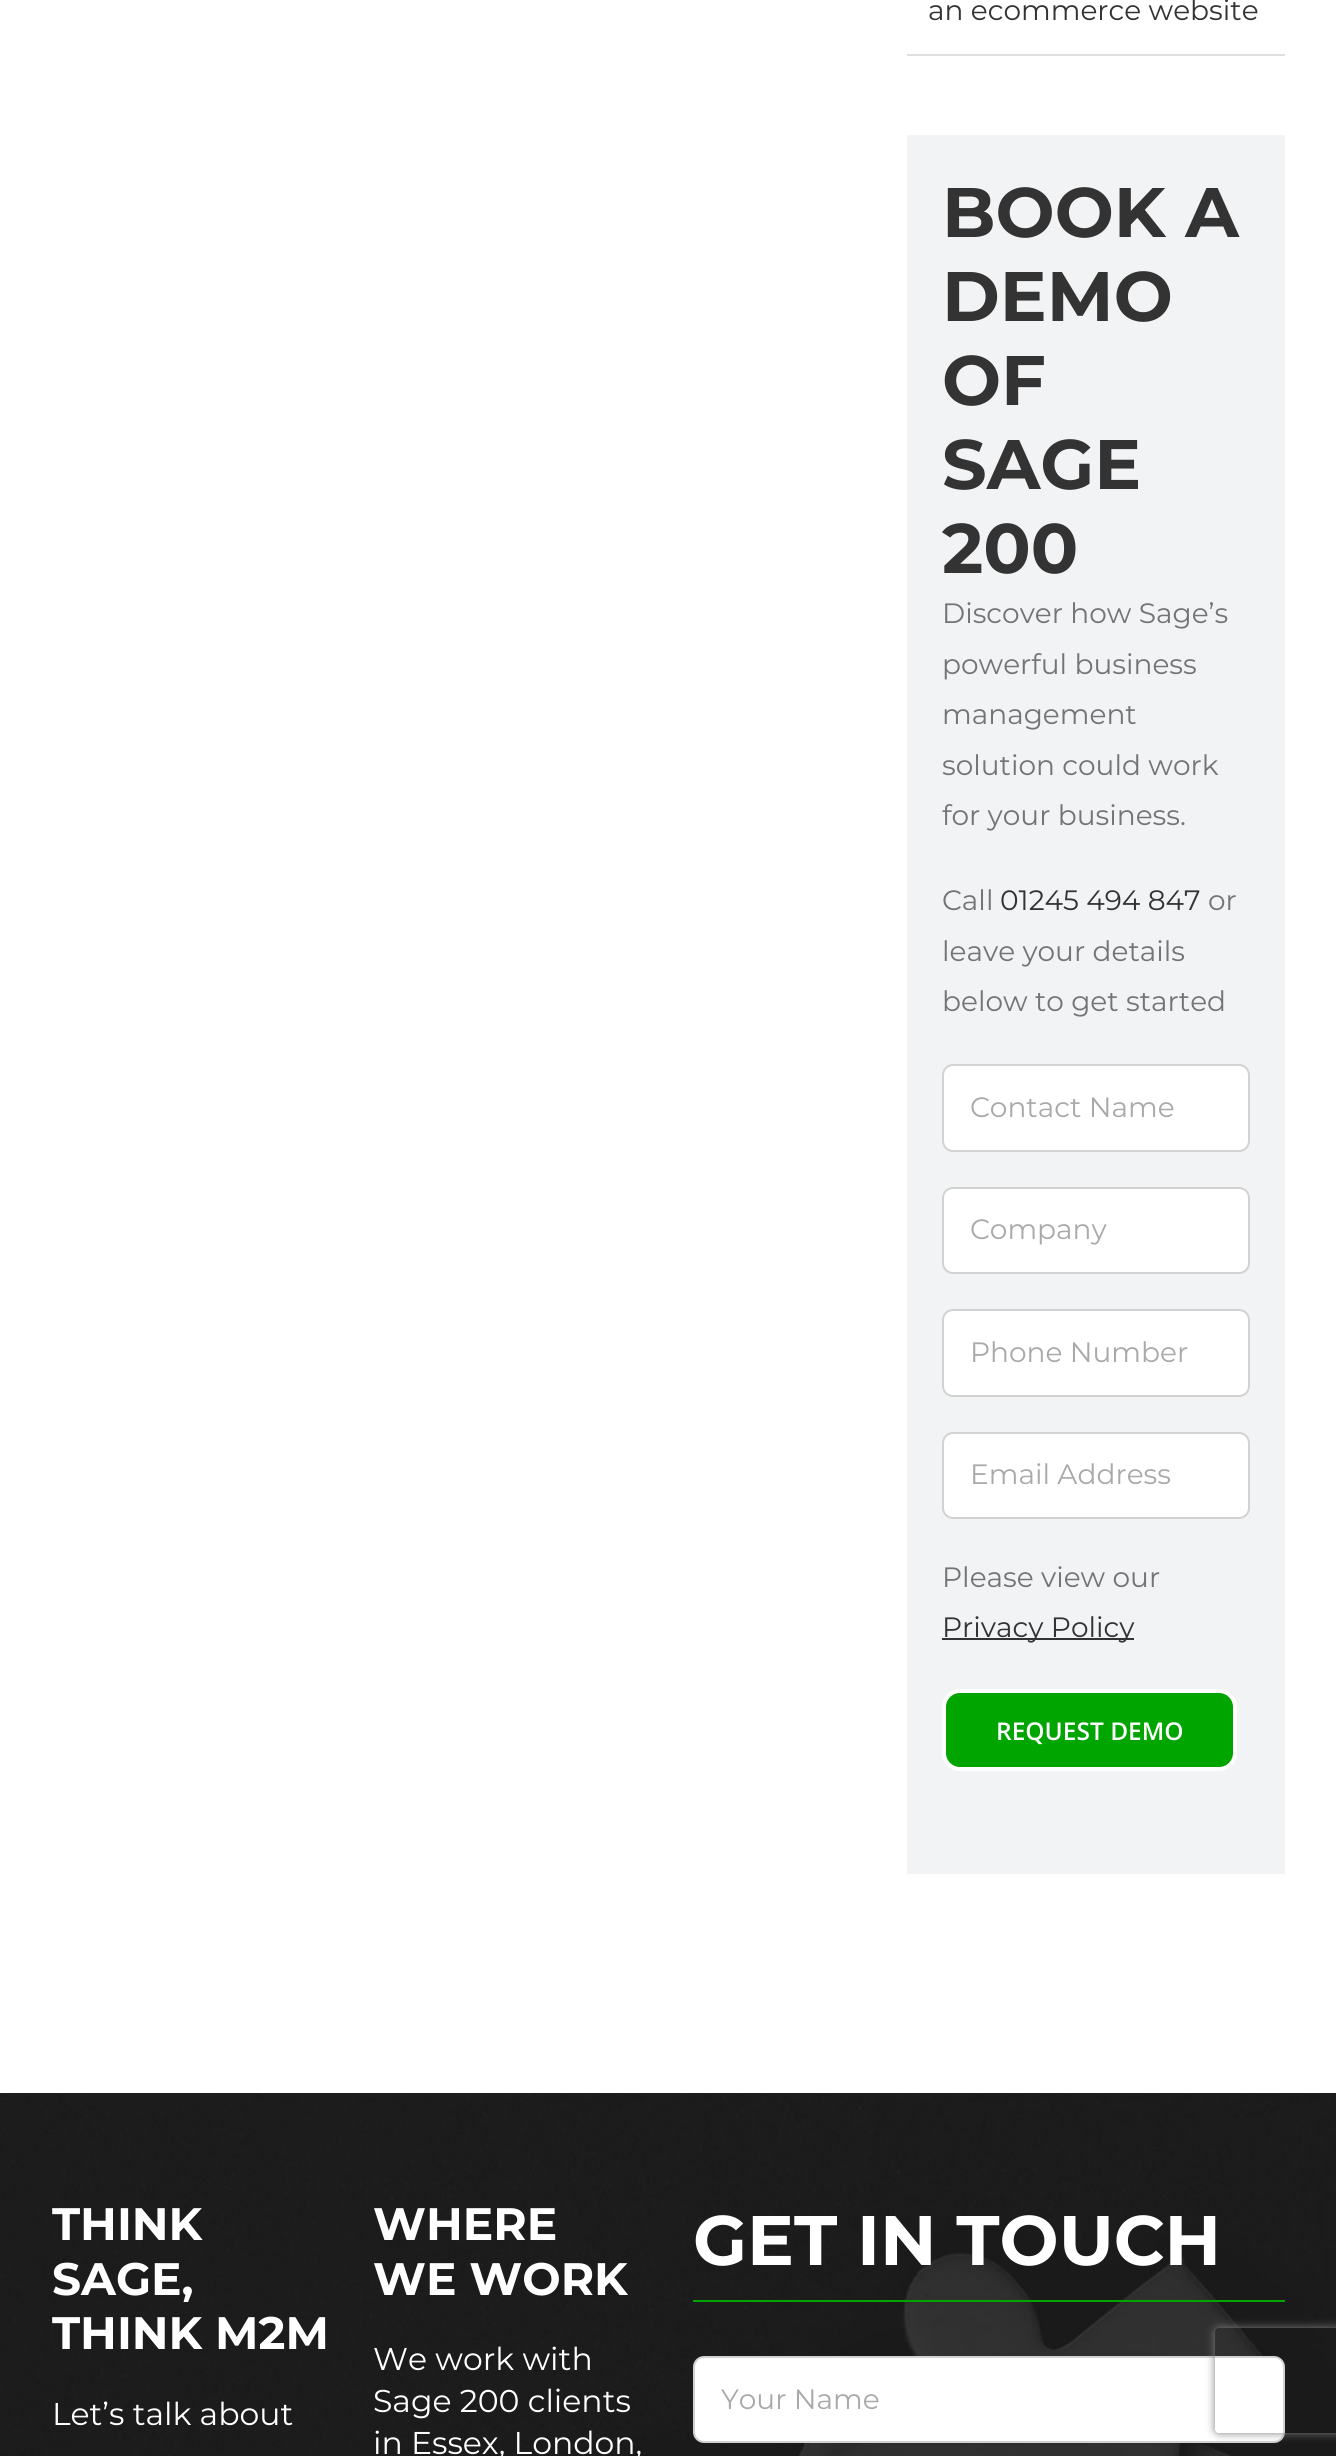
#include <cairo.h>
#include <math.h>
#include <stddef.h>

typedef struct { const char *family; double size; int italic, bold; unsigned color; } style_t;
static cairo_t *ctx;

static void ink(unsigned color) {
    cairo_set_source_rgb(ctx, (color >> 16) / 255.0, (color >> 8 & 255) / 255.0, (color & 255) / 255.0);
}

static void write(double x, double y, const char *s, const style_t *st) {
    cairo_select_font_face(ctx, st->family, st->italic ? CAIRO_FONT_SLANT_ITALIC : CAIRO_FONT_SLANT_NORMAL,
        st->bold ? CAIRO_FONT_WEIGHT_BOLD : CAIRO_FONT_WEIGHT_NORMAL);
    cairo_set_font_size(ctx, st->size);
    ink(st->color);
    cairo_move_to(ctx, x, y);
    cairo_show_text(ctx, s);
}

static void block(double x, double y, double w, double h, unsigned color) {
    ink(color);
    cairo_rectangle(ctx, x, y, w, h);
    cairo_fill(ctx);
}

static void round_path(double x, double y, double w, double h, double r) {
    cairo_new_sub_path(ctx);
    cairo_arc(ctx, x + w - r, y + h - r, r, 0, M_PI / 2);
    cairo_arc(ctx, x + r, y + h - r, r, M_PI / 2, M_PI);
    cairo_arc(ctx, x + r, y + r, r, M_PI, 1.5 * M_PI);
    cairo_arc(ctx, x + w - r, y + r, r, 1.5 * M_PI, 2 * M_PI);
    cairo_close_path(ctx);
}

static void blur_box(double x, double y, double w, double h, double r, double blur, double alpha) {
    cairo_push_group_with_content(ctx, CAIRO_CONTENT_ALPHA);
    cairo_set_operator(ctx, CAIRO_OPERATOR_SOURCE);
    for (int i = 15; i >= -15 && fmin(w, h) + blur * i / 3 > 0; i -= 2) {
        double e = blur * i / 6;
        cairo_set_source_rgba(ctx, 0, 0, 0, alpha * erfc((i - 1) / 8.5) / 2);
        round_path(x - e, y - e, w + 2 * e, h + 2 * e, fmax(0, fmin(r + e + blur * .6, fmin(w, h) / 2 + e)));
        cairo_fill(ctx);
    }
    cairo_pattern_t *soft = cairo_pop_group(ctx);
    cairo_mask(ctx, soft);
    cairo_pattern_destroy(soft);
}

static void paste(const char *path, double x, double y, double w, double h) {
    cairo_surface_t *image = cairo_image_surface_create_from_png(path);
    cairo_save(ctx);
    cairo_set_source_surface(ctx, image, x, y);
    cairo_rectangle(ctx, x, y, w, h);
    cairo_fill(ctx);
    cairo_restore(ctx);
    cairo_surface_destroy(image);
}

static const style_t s1 = {"Montserrat", 28, 0, 0, 0x333333};
static const style_t s2 = {"Montserrat", 70, 0, 1, 0x333333};
static const style_t s3 = {"Montserrat", 28, 0, 0, 0x747474};
static const style_t s4 = {"Montserrat", 28, 0, 0, 0xaaa9a9};
static const style_t s5 = {"Open Sans SemiBold", 24.5, 0, 0, 0xffffff};
static const style_t s6 = {"Montserrat", 45.5, 0, 1, 0xffffff};
static const style_t s7 = {"Montserrat", 31.5, 0, 0, 0xffffff};
static const style_t s8 = {"Montserrat", 70, 0, 1, 0xffffff};

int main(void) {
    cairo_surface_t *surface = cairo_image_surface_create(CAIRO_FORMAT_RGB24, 1336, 2456);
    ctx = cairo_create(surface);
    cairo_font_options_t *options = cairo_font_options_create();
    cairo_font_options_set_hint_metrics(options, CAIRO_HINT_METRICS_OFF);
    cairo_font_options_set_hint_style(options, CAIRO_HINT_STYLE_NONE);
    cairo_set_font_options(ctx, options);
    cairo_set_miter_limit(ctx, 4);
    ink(0xffffff);
    cairo_paint(ctx);
    block(907, 54, 378, 2, 0xe0dede);
    write(928, 20, "an ecommerce website", &s1);
    block(907, 135, 378, 1739, 0xf2f3f5);
    write(942, 237, "BOOK A", &s2);
    write(942, 321, "DEMO", &s2);
    write(942, 405, "OF", &s2);
    write(942, 489, "SAGE", &s2);
    write(942, 573, "200", &s2);
    write(942, 623, "Discover how Sage’s", &s3);
    write(942, 674, "powerful business", &s3);
    write(942, 724, "management", &s3);
    write(942, 775, "solution could work", &s3);
    write(942, 825, "for your business.", &s3);
    write(942, 910, "Call", &s3);
    write(1000, 910, "01245 494 847", &s1);
    write(1208, 910, "or", &s3);
    write(942, 961, "leave your details", &s3);
    write(942, 1011, "below to get started", &s3);
    ink(0xffffff);
    round_path(943, 1065, 306, 86, 10);
    cairo_fill_preserve(ctx);
    ink(0xd2d2d2);
    cairo_stroke(ctx);
    write(970, 1117, "Contact Name", &s4);
    ink(0xffffff);
    round_path(943, 1188, 306, 85, 10);
    cairo_fill_preserve(ctx);
    ink(0xd2d2d2);
    cairo_stroke(ctx);
    write(970, 1239, "Company", &s4);
    ink(0xffffff);
    round_path(943, 1310, 306, 86, 10);
    cairo_fill_preserve(ctx);
    ink(0xd2d2d2);
    cairo_stroke(ctx);
    write(970, 1362, "Phone Number", &s4);
    ink(0xffffff);
    round_path(943, 1433, 306, 85, 10);
    cairo_fill_preserve(ctx);
    ink(0xd2d2d2);
    cairo_stroke(ctx);
    write(970, 1484, "Email Address", &s4);
    write(942, 1587, "Please view our", &s3);
    block(942, 1638, 192, 2, 0x333333);
    write(942, 1637, "Privacy Policy", &s1);
    ink(0x00a500);
    round_path(944, 1691, 291, 78, 16);
    cairo_fill_preserve(ctx);
    ink(0xffffff);
    cairo_set_line_width(ctx, 4);
    cairo_stroke(ctx);
    write(996, 1740, "REQUEST DEMO", &s5);
    paste("pic1.png", 0, 2093, 1336, 363);
    write(52, 2240, "THINK", &s6);
    write(52, 2295, "SAGE,", &s6);
    write(52, 2349, "THINK M2M", &s6);
    write(52, 2425, "Let’s talk about", &s7);
    write(373, 2240, "WHERE", &s6);
    write(373, 2295, "WE WORK", &s6);
    write(373, 2370, "We work with", &s7);
    write(373, 2412, "Sage 200 clients", &s7);
    write(373, 2454, "in Essex, London,", &s7);
    block(693, 2300, 592, 2, 0x00a500);
    write(693, 2265, "GET IN TOUCH", &s8);
    round_path(694, 2357, 590, 85, 10);
    cairo_fill_preserve(ctx);
    ink(0xd2d2d2);
    cairo_set_line_width(ctx, 2);
    cairo_stroke(ctx);
    write(721, 2409, "Your Name", &s4);
    cairo_save(ctx);
    cairo_set_fill_rule(ctx, CAIRO_FILL_RULE_EVEN_ODD);
    cairo_new_path(ctx);
    cairo_move_to(ctx, 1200, 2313);
    cairo_line_to(ctx, 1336, 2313);
    cairo_line_to(ctx, 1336, 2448);
    cairo_line_to(ctx, 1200, 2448);
    cairo_close_path(ctx);
    cairo_move_to(ctx, 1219, 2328);
    cairo_line_to(ctx, 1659, 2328);
    cairo_curve_to(ctx, 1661, 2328, 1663, 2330, 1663, 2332);
    cairo_line_to(ctx, 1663, 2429);
    cairo_curve_to(ctx, 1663, 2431, 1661, 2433, 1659, 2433);
    cairo_line_to(ctx, 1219, 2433);
    cairo_curve_to(ctx, 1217, 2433, 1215, 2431, 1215, 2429);
    cairo_line_to(ctx, 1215, 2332);
    cairo_curve_to(ctx, 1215, 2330, 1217, 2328, 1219, 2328);
    cairo_close_path(ctx);
    cairo_clip(ctx);
    ink(0x808080);
    blur_box(1215, 2328, 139, 105, 4, 4.5, 1);
    cairo_restore(ctx);
    cairo_surface_write_to_png(surface, "screenshot.png");
    cairo_font_options_destroy(options);
    cairo_destroy(ctx);
    cairo_surface_destroy(surface);
    return 0;
}
